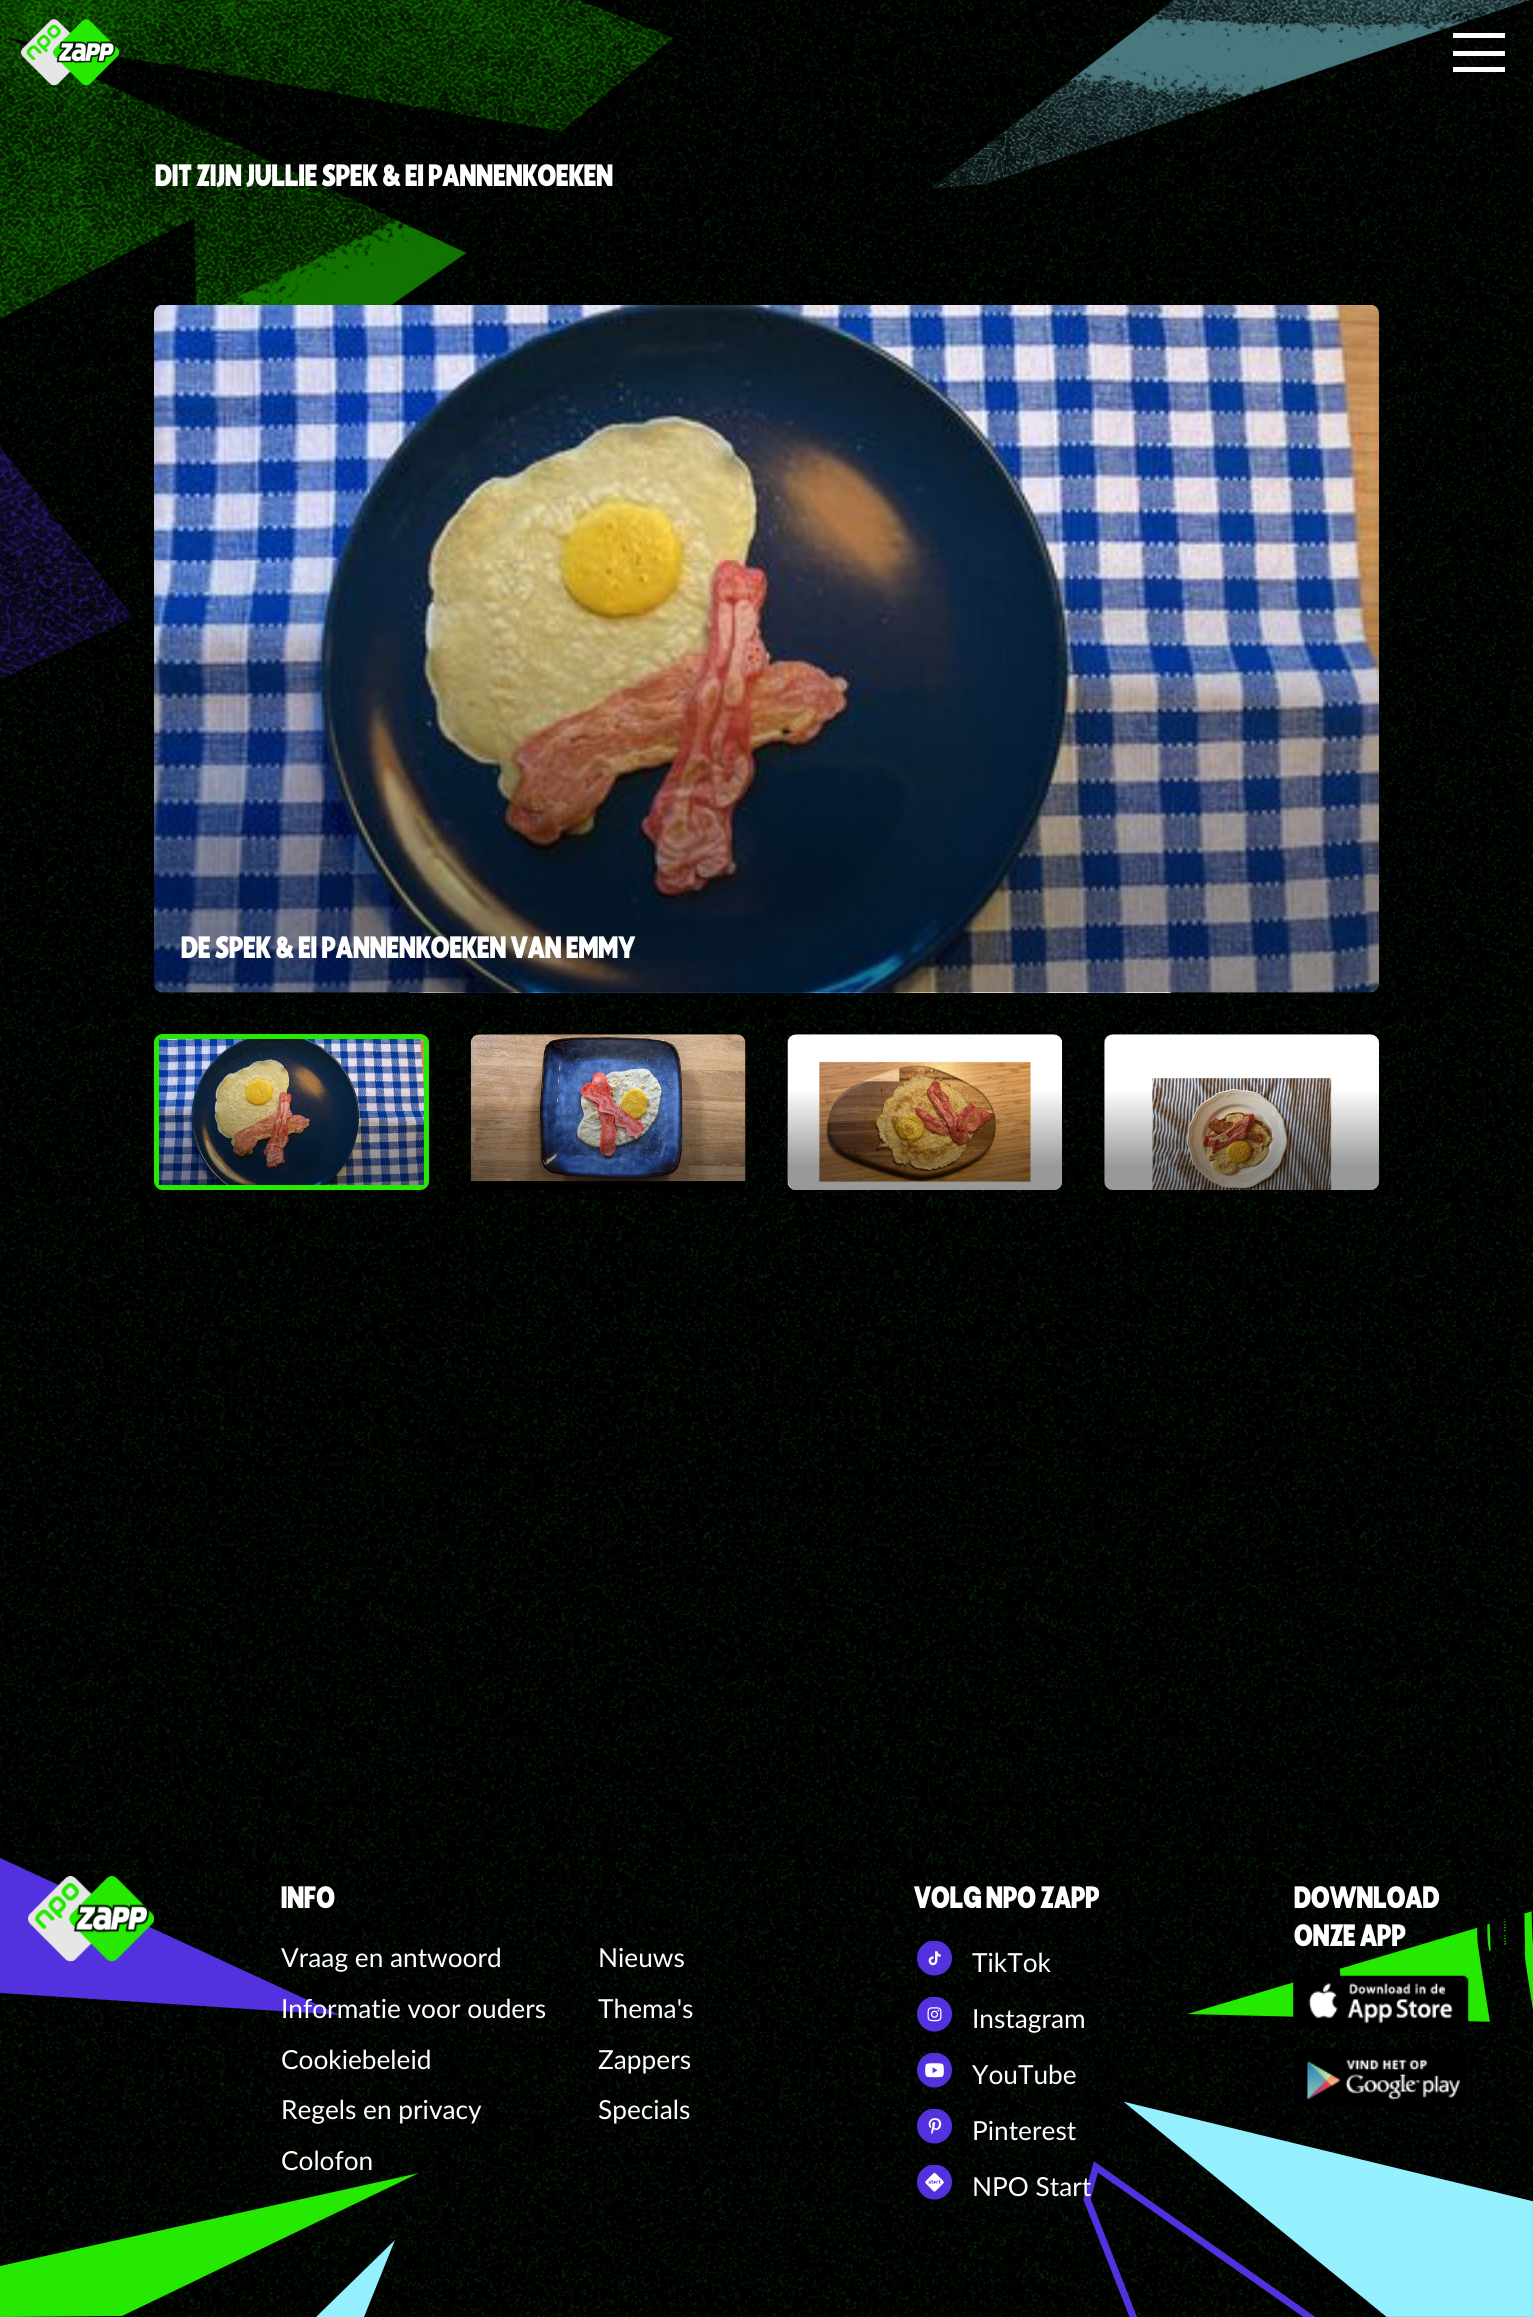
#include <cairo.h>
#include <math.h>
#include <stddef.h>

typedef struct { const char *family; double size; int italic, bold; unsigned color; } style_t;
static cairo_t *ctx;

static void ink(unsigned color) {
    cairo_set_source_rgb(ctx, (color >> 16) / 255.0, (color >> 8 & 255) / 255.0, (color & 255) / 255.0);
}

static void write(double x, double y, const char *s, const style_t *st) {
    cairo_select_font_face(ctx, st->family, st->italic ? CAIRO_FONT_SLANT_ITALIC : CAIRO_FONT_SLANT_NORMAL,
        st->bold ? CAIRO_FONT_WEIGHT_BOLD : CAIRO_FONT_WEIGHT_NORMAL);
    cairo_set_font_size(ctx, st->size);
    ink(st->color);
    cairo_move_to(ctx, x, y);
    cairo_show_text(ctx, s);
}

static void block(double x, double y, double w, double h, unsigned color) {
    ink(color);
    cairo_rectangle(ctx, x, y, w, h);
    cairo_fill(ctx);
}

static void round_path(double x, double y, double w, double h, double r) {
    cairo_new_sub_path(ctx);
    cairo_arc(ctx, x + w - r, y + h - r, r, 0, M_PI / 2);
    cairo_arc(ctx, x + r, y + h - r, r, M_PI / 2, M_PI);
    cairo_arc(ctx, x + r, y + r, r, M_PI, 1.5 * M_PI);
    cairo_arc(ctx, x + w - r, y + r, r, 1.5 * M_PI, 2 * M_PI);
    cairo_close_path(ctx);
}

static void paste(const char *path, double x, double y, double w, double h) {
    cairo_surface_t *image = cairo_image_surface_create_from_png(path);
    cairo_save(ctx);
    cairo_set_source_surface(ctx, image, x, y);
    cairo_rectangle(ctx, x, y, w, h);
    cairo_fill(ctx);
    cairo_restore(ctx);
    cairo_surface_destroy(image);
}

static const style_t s1 = {"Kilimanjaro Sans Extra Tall", 29.75, 0, 0, 0xffffff};
static const style_t s2 = {"Lato", 26.25, 0, 0, 0xffffff};

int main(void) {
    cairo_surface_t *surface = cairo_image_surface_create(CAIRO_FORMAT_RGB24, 1533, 2317);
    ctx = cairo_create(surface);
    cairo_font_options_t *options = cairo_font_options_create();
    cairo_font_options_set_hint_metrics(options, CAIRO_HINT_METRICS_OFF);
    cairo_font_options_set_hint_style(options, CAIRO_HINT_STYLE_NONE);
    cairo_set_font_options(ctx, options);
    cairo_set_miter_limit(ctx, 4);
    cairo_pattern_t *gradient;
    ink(0xffffff);
    cairo_paint(ctx);
    paste("pic1.png", 0, 0, 1533, 2317);
    paste("pic2.png", 0, 0, 1530, 680);
    paste("pic3.png", 21, 19, 98, 67);
    block(1453, 33, 52, 5, 0xffffff);
    block(1453, 67, 52, 5, 0xffffff);
    block(1453, 51, 52, 5, 0xffffff);
    write(155, 186, "DIT ZIJN JULLIE SPEK & EI PANNENKOEKEN", &s1);
    paste("pic4.png", 154, 305, 1225, 688);
    gradient = cairo_pattern_create_linear(767, 304, 767, 992);
    cairo_pattern_add_color_stop_rgba(gradient, 0.35, 0, 0, 0, 0);
    cairo_pattern_add_color_stop_rgba(gradient, 0.85, 0, 0, 0, 0.4);
    cairo_set_source(ctx, gradient);
    cairo_pattern_destroy(gradient);
    round_path(154, 305, 1225, 687, 9);
    cairo_fill(ctx);
    write(181, 958, "DE SPEK & EI PANNENKOEKEN VAN EMMY", &s1);
    paste("pic5.png", 154, 1034, 275, 156);
    gradient = cairo_pattern_create_linear(291, 1034, 291, 1190);
    cairo_pattern_add_color_stop_rgba(gradient, 0.35, 0, 0, 0, 0);
    cairo_pattern_add_color_stop_rgba(gradient, 0.85, 0, 0, 0, 0.4);
    cairo_set_source(ctx, gradient);
    cairo_pattern_destroy(gradient);
    round_path(154, 1034, 275, 156, 9);
    cairo_fill(ctx);
    ink(0x25e900);
    cairo_set_fill_rule(ctx, CAIRO_FILL_RULE_EVEN_ODD);
    cairo_new_path(ctx);
    cairo_move_to(ctx, 163, 1034);
    cairo_curve_to(ctx, 158, 1034, 154, 1038, 154, 1043);
    cairo_line_to(ctx, 154, 1181);
    cairo_curve_to(ctx, 154, 1186, 158, 1190, 163, 1190);
    cairo_line_to(ctx, 420, 1190);
    cairo_curve_to(ctx, 425, 1190, 429, 1186, 429, 1181);
    cairo_line_to(ctx, 429, 1043);
    cairo_curve_to(ctx, 429, 1038, 425, 1034, 420, 1034);
    cairo_close_path(ctx);
    cairo_move_to(ctx, 159, 1039);
    cairo_line_to(ctx, 159, 1185);
    cairo_line_to(ctx, 424, 1185);
    cairo_line_to(ctx, 424, 1039);
    cairo_close_path(ctx);
    cairo_fill(ctx);
    ink(0x000000);
    round_path(471, 1034, 275, 156, 9);
    cairo_fill(ctx);
    paste("pic6.png", 470, 1034, 276, 148);
    gradient = cairo_pattern_create_linear(608, 1034, 608, 1190);
    cairo_pattern_add_color_stop_rgba(gradient, 0.35, 0, 0, 0, 0);
    cairo_pattern_add_color_stop_rgba(gradient, 0.85, 0, 0, 0, 0.4);
    cairo_set_source(ctx, gradient);
    cairo_pattern_destroy(gradient);
    round_path(471, 1034, 275, 156, 9);
    cairo_fill(ctx);
    ink(0x000000);
    round_path(788, 1034, 274, 156, 9);
    cairo_fill(ctx);
    paste("pic7.png", 787, 1034, 276, 156);
    gradient = cairo_pattern_create_linear(925, 1034, 925, 1190);
    cairo_pattern_add_color_stop_rgba(gradient, 0.35, 0, 0, 0, 0);
    cairo_pattern_add_color_stop_rgba(gradient, 0.85, 0, 0, 0, 0.4);
    cairo_set_source(ctx, gradient);
    cairo_pattern_destroy(gradient);
    round_path(788, 1034, 274, 156, 9);
    cairo_fill(ctx);
    ink(0x000000);
    round_path(1104, 1034, 275, 156, 9);
    cairo_fill(ctx);
    paste("pic8.png", 1104, 1034, 275, 156);
    gradient = cairo_pattern_create_linear(1242, 1034, 1242, 1190);
    cairo_pattern_add_color_stop_rgba(gradient, 0.35, 0, 0, 0, 0);
    cairo_pattern_add_color_stop_rgba(gradient, 0.85, 0, 0, 0, 0.4);
    cairo_set_source(ctx, gradient);
    cairo_pattern_destroy(gradient);
    round_path(1104, 1034, 275, 156, 9);
    cairo_fill(ctx);
    ink(0x25e900);
    cairo_set_fill_rule(ctx, CAIRO_FILL_RULE_WINDING);
    cairo_new_path(ctx);
    cairo_move_to(ctx, 419, 2173);
    cairo_line_to(ctx, 0, 2266);
    cairo_line_to(ctx, 0, 2317);
    cairo_line_to(ctx, 122, 2316);
    cairo_close_path(ctx);
    cairo_fill(ctx);
    ink(0x5331df);
    cairo_new_path(ctx);
    cairo_move_to(ctx, 340, 2015);
    cairo_line_to(ctx, 0, 1858);
    cairo_line_to(ctx, 0, 1993);
    cairo_close_path(ctx);
    cairo_fill(ctx);
    ink(0x94f0ff);
    cairo_new_path(ctx);
    cairo_move_to(ctx, 316, 2317);
    cairo_line_to(ctx, 395, 2240);
    cairo_line_to(ctx, 364, 2317);
    cairo_close_path(ctx);
    cairo_fill(ctx);
    paste("pic9.png", 28, 1876, 126, 86);
    write(281, 1908, "INFO", &s1);
    write(281, 1967, "Vraag en antwoord", &s2);
    write(281, 2018, "Informatie voor ouders", &s2);
    write(281, 2069, "Cookiebeleid", &s2);
    write(281, 2119, "Regels en privacy", &s2);
    write(281, 2170, "Colofon", &s2);
    write(598, 1967, "Nieuws", &s2);
    write(598, 2018, "Thema's", &s2);
    write(598, 2069, "Zappers", &s2);
    write(598, 2119, "Specials", &s2);
    write(914, 1908, "VOLG NPO ZAPP", &s1);
    paste("pic10.png", 917, 1941, 35, 35);
    write(972, 1972, "TikTok", &s2);
    paste("pic11.png", 917, 1997, 35, 35);
    paste("pic17.png", 1083, 1911, 450, 406);
    write(972, 2028, "Instagram", &s2);
    paste("pic12.png", 917, 2053, 35, 35);
    write(972, 2084, "YouTube", &s2);
    paste("pic13.png", 917, 2109, 35, 35);
    write(972, 2140, "Pinterest", &s2);
    paste("pic14.png", 917, 2165, 35, 35);
    write(972, 2196, "NPO Start", &s2);
    write(1294, 1908, "DOWNLOAD", &s1);
    write(1294, 1946, "ONZE APP", &s1);
    paste("pic15.png", 1293, 1975, 176, 54);
    paste("pic16.png", 1294, 2049, 174, 58);
    cairo_surface_write_to_png(surface, "screenshot.png");
    cairo_font_options_destroy(options);
    cairo_destroy(ctx);
    cairo_surface_destroy(surface);
    return 0;
}
